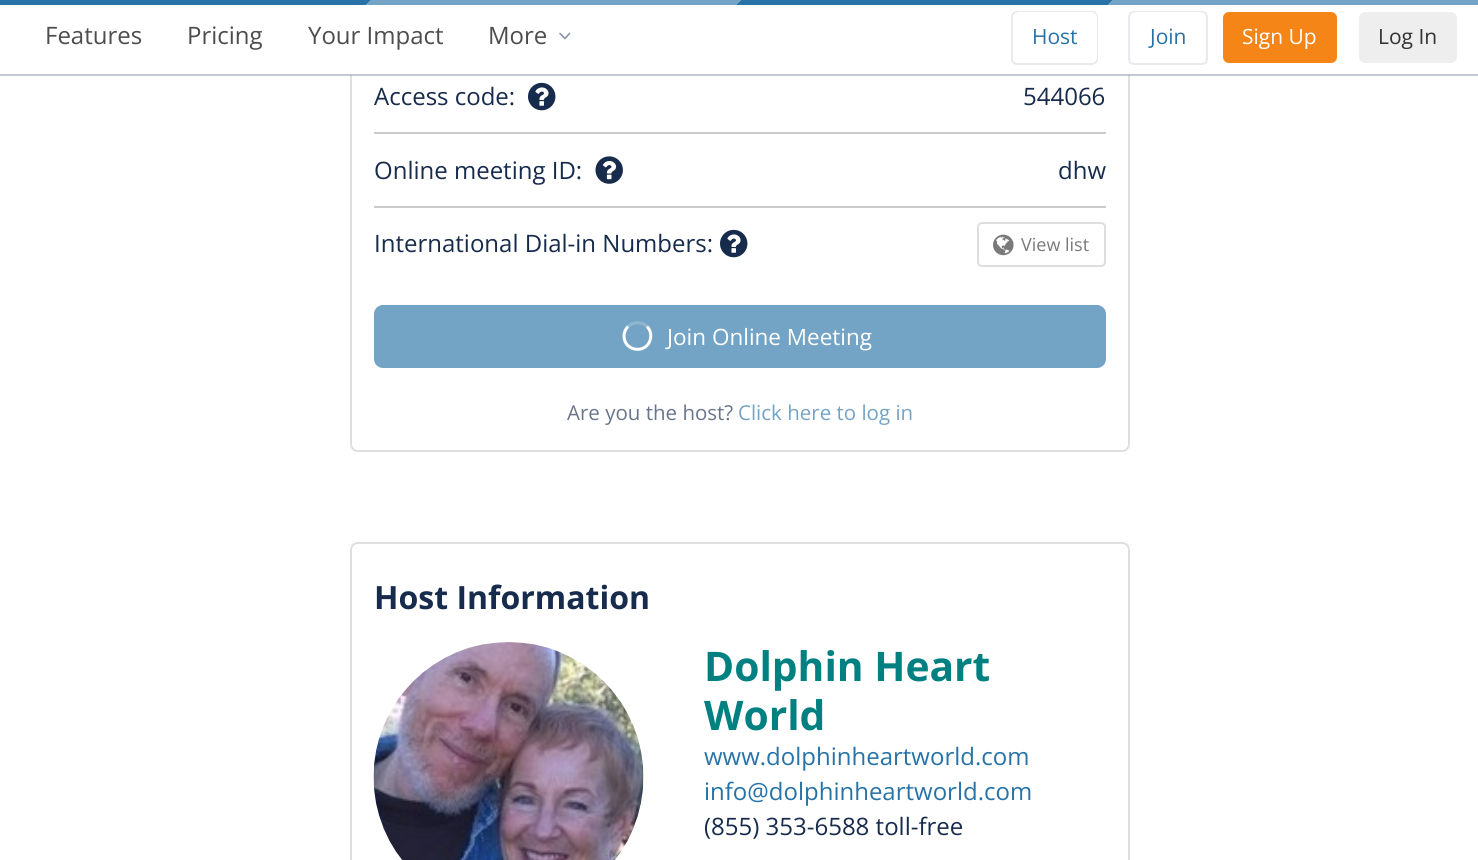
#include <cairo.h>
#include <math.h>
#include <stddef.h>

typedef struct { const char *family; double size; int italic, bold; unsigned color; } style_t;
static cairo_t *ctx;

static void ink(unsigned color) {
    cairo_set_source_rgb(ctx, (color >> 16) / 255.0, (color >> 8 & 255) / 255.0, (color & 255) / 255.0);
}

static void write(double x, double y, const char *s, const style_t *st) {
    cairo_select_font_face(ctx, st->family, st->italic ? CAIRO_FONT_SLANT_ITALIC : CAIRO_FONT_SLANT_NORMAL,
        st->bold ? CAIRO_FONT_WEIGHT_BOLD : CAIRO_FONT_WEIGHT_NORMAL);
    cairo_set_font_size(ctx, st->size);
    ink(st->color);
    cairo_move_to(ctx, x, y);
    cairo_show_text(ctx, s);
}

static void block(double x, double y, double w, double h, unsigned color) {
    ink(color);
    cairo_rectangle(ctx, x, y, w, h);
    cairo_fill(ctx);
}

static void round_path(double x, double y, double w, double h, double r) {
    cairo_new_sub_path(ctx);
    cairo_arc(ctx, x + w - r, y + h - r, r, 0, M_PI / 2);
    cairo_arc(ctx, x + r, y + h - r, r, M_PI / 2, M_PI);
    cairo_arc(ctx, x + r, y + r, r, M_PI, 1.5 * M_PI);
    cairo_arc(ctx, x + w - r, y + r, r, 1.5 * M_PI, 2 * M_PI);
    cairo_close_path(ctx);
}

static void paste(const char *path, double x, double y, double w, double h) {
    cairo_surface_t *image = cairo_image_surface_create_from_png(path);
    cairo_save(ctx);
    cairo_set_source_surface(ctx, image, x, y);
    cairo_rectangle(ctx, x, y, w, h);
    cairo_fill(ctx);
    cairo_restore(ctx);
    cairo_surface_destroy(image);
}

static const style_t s1 = {"Open Sans", 24, 0, 0, 0x4d4d4d};
static const style_t s2 = {"Open Sans", 21, 0, 0, 0x2773a7};
static const style_t s3 = {"Open Sans", 21, 0, 0, 0xffffff};
static const style_t s4 = {"Open Sans", 21, 0, 0, 0x333333};
static const style_t s5 = {"Open Sans", 24, 0, 0, 0x172b4d};
static const style_t s6 = {"Open Sans", 18, 0, 0, 0x7a7a7a};
static const style_t s7 = {"Open Sans", 22.5, 0, 0, 0xffffff};
static const style_t s8 = {"Open Sans", 20.5, 0, 0, 0x68758b};
static const style_t s9 = {"Open Sans", 20.5, 0, 0, 0x73a4c6};
static const style_t s10 = {"Open Sans", 32, 0, 1, 0x172b4d};
static const style_t s11 = {"Open Sans", 40.75, 0, 1, 0x008080};
static const style_t s12 = {"Open Sans", 24, 0, 0, 0x2773a7};

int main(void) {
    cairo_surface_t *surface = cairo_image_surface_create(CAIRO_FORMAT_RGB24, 1478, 860);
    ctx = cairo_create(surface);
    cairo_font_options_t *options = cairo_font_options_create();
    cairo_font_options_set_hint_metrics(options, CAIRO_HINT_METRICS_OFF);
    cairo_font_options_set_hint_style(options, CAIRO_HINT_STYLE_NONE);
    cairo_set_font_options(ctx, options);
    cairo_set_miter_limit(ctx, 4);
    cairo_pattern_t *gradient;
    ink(0xffffff);
    cairo_paint(ctx);
    round_path(351, -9, 778, 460, 7);
    ink(0xdfdfdf);
    cairo_stroke(ctx);
    gradient = cairo_pattern_create_linear(1110, 373, 369, -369);
    cairo_pattern_add_color_stop_rgba(gradient, 0.25, 0.451, 0.643, 0.776, 1);
    cairo_pattern_add_color_stop_rgba(gradient, 0.25, 0.153, 0.451, 0.655, 1);
    cairo_pattern_add_color_stop_rgba(gradient, 0.5, 0.153, 0.451, 0.655, 1);
    cairo_pattern_add_color_stop_rgba(gradient, 0.5, 0.451, 0.643, 0.776, 1);
    cairo_pattern_add_color_stop_rgba(gradient, 0.75, 0.451, 0.643, 0.776, 1);
    cairo_pattern_add_color_stop_rgba(gradient, 0.75, 0.153, 0.451, 0.655, 1);
    cairo_pattern_add_color_stop_rgba(gradient, 1, 0.153, 0.451, 0.655, 1);
    cairo_set_source(ctx, gradient);
    cairo_pattern_destroy(gradient);
    cairo_rectangle(ctx, 0, 0, 1478, 5);
    cairo_fill(ctx);
    block(350, 5, 780, 70, 0xffffff);
    cairo_set_source_rgba(ctx, 0.537, 0.576, 0.643, 0.5);
    cairo_rectangle(ctx, 0, 74, 1478, 2);
    cairo_fill(ctx);
    write(45, 44, "Features", &s1);
    write(187, 44, "Pricing", &s1);
    write(308, 44, "Your Impact", &s1);
    write(488, 44, "More", &s1);
    cairo_new_path(ctx);
    cairo_move_to(ctx, 569.5, 33.5);
    cairo_line_to(ctx, 565, 38.5);
    cairo_line_to(ctx, 560, 33.5);
    ink(0x8993a4);
    cairo_set_line_width(ctx, 1.6);
    cairo_set_line_cap(ctx, CAIRO_LINE_CAP_ROUND);
    cairo_set_line_join(ctx, CAIRO_LINE_JOIN_ROUND);
    cairo_stroke(ctx);
    round_path(1012, 12, 85, 52, 5);
    ink(0xe7e9ed);
    cairo_set_line_width(ctx, 2);
    cairo_set_line_cap(ctx, CAIRO_LINE_CAP_BUTT);
    cairo_set_line_join(ctx, CAIRO_LINE_JOIN_MITER);
    cairo_stroke(ctx);
    ink(0xffffff);
    round_path(1013, 12, 84, 51, 6);
    cairo_fill(ctx);
    write(1032, 44, "Host", &s2);
    round_path(1129, 12, 78, 52, 5);
    ink(0xe7e9ed);
    cairo_stroke(ctx);
    ink(0xffffff);
    round_path(1130, 12, 76, 51, 6);
    cairo_fill(ctx);
    write(1150, 44, "Join", &s2);
    ink(0xf58517);
    round_path(1223, 12, 114, 51, 6);
    cairo_fill(ctx);
    write(1242, 44, "Sign Up", &s3);
    ink(0xeeeeee);
    round_path(1359, 12, 98, 51, 6);
    cairo_fill(ctx);
    write(1378, 44, "Log In", &s4);
    block(374, 132, 732, 2, 0xcccccc);
    write(374, 105, "Access code:", &s5);
    paste("pic1.png", 528, 82, 28, 29);
    write(1023, 105, "544066", &s5);
    block(374, 206, 732, 2, 0xcccccc);
    write(374, 179, "Online meeting ID:", &s5);
    paste("pic2.png", 595, 156, 28, 28);
    write(1058, 179, "dhw", &s5);
    write(374, 252, "International Dial-in Numbers:", &s5);
    paste("pic1.png", 720, 229, 28, 29);
    round_path(978, 223, 127, 43, 4);
    ink(0xdedede);
    cairo_stroke(ctx);
    paste("pic3.png", 993, 234, 21, 22);
    write(1021, 251, "View list", &s6);
    ink(0x73a4c6);
    round_path(374, 305, 732, 63, 9);
    cairo_fill(ctx);
    cairo_new_path(ctx);
    cairo_move_to(ctx, 628, 326.5);
    cairo_curve_to(ctx, 633, 321.5, 642, 321.5, 647, 326.5);
    ink(0x8fb6d1);
    cairo_set_line_width(ctx, 3);
    cairo_stroke(ctx);
    cairo_new_path(ctx);
    cairo_move_to(ctx, 647, 326.5);
    cairo_curve_to(ctx, 650, 329.5, 651.5, 334.5, 650.5, 338.5);
    cairo_curve_to(ctx, 647.5, 354.5, 624, 352, 624, 336);
    cairo_curve_to(ctx, 624, 332.5, 625.5, 329, 628, 326.5);
    ink(0xffffff);
    cairo_stroke(ctx);
    write(667, 345, "Join Online Meeting", &s7);
    write(567, 420, "Are you the host?", &s8);
    write(738, 420, "Click here to log in", &s9);
    round_path(351, 543, 778, 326, 7);
    ink(0xdfdfdf);
    cairo_set_line_width(ctx, 2);
    cairo_stroke(ctx);
    write(374, 609, "Host Information", &s10);
    paste("pic4.png", 373, 642, 271, 218);
    write(704, 681, "Dolphin Heart", &s11);
    cairo_save(ctx);
    cairo_rectangle(ctx, 704, 642, 372, 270);
    cairo_clip(ctx);
    write(704, 730, "World", &s11);
    cairo_restore(ctx);
    write(704, 765, "www.dolphinheartworld.com", &s12);
    write(704, 800, "info@dolphinheartworld.com", &s12);
    write(704, 835, "(855) 353-6588 toll-free", &s5);
    cairo_surface_write_to_png(surface, "screenshot.png");
    cairo_font_options_destroy(options);
    cairo_destroy(ctx);
    cairo_surface_destroy(surface);
    return 0;
}
